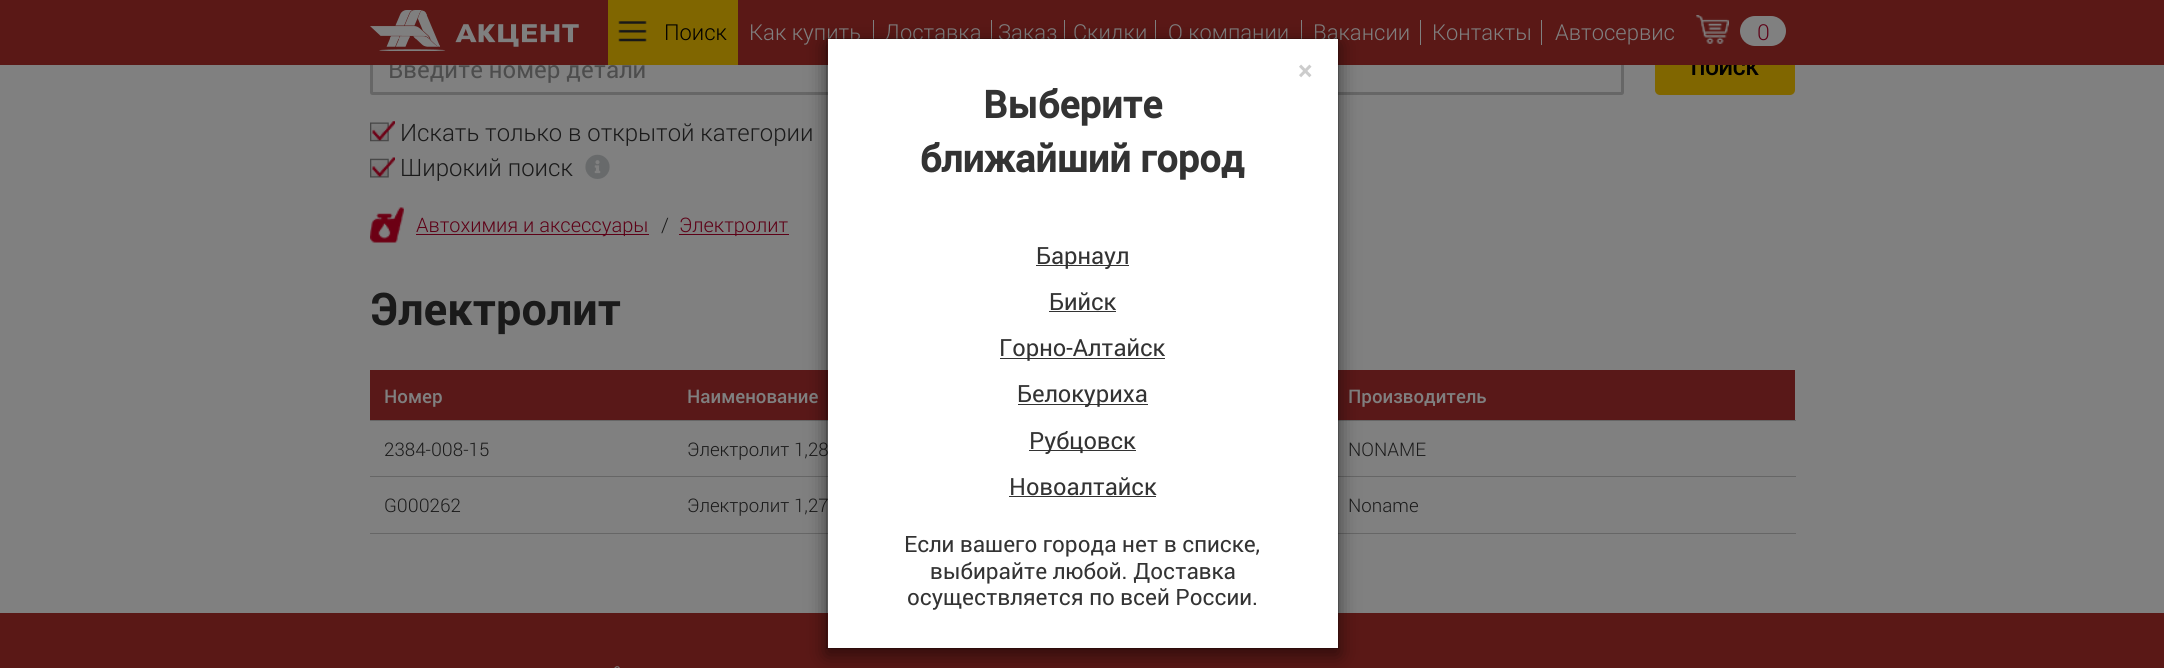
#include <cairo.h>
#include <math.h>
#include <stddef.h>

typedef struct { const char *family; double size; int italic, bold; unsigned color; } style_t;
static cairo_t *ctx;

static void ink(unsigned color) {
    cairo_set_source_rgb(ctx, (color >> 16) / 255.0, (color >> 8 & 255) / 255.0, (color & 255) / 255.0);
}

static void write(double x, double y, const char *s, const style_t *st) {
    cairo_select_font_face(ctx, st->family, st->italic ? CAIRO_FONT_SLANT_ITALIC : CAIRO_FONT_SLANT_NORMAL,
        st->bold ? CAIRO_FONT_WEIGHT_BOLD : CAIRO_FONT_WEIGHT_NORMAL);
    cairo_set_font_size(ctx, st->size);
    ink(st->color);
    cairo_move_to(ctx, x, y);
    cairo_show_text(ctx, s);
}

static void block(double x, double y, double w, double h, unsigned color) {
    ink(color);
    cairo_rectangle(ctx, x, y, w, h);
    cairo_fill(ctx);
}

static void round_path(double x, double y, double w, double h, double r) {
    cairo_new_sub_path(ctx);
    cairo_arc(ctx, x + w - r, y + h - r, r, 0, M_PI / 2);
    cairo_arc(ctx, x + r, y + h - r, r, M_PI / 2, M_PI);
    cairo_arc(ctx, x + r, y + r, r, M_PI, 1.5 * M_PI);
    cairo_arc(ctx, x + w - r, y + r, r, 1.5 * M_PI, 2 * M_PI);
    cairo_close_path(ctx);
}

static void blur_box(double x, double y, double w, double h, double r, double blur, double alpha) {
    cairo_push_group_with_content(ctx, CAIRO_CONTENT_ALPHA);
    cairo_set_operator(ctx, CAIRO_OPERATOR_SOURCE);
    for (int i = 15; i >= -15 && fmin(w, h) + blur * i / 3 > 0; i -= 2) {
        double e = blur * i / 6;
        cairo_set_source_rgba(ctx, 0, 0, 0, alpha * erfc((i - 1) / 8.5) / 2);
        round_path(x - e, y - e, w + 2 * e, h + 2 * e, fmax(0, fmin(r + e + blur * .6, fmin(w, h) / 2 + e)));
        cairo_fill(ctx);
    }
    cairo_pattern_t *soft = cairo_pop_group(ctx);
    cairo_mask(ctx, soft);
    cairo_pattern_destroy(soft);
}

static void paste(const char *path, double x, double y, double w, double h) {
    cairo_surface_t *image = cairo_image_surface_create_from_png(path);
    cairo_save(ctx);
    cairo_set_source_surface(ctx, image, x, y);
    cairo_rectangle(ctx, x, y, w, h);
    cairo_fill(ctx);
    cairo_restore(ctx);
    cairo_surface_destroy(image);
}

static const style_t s1 = {"Roboto", 24, 0, 0, 0x4d4d4d};
static const style_t s2 = {"Roboto", 20, 0, 1, 0x000000};
static const style_t s3 = {"Roboto Light", 22, 0, 0, 0x000000};
static const style_t s4 = {"Roboto Light", 22, 0, 0, 0x808080};
static const style_t s5 = {"Roboto Light", 22, 0, 0, 0x5d0016};
static const style_t s6 = {"Roboto Light", 24, 0, 0, 0x1a1a1a};
static const style_t s7 = {"Roboto Light", 20, 0, 0, 0x5d0016};
static const style_t s8 = {"Roboto Light", 20, 0, 0, 0x1a1a1a};
static const style_t s9 = {"Roboto", 45, 0, 1, 0x1a1a1a};
static const style_t s10 = {"Roboto Medium", 18.75, 0, 0, 0x808080};
static const style_t s11 = {"Roboto Light", 18.75, 0, 0, 0x1a1a1a};
static const style_t s12 = {"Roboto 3", 26, 0, 1, 0xcccccc};
static const style_t s13 = {"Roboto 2", 38, 0, 1, 0x333333};
static const style_t s14 = {"Roboto", 23.75, 0, 0, 0x333333};
static const style_t s15 = {"Roboto", 22.5, 0, 0, 0x333333};

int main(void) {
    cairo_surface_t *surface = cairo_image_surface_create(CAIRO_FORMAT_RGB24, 2164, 668);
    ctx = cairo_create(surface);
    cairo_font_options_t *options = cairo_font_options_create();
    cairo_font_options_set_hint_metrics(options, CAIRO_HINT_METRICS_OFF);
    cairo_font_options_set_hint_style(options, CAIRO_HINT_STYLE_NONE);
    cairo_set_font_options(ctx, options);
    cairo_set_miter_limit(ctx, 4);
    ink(0x808080);
    cairo_paint(ctx);
    round_path(371.5, 42.5, 1251, 51, 1);
    ink(0x666666);
    cairo_set_line_width(ctx, 3);
    cairo_stroke(ctx);
    write(388, 78, "Введите номер детали", &s1);
    ink(0x806600);
    round_path(1655, 41, 140, 54, 5);
    cairo_fill(ctx);
    write(1691, 75, "ПОИСК", &s2);
    block(0, 0, 2164, 65, 0x5a1816);
    paste("pic1.png", 370, 10, 209, 41);
    block(608, 0, 130, 65, 0x806600);
    paste("pic2.png", 618, 21, 29, 21);
    write(664, 40, "Поиск", &s3);
    write(749, 40, "Как купить", &s4);
    block(873, 20, 1, 25, 0x808080);
    write(884, 40, "Доставка", &s4);
    block(991, 20, 1, 25, 0x808080);
    write(998, 40, "Заказ", &s4);
    block(1064, 20, 1, 25, 0x808080);
    write(1073, 40, "Скидки", &s4);
    block(1155, 20, 1, 25, 0x808080);
    write(1168, 40, "О компании", &s4);
    block(1301, 20, 1, 25, 0x808080);
    write(1313, 40, "Вакансии", &s4);
    block(1420, 20, 1, 25, 0x808080);
    write(1432, 40, "Контакты", &s4);
    block(1541, 20, 1, 25, 0x808080);
    write(1555, 40, "Автосервис", &s4);
    paste("pic3.png", 1696, 15, 33, 29);
    round_path(1740, 16, 46, 30, 15);
    cairo_fill(ctx);
    write(1757, 40, "0", &s5);
    paste("pic4.png", 370, 121, 25, 21);
    write(400, 141, "Искать только в открытой категории", &s6);
    paste("pic5.png", 370, 157, 25, 21);
    write(400, 176, "Широкий поиск", &s6);
    paste("pic6.png", 585, 154, 25, 25);
    paste("pic7.png", 370, 207, 34, 36);
    block(416, 234, 233, 1, 0x5d0016);
    write(416, 232, "Автохимия и аксессуары", &s7);
    write(661, 232, "/", &s8);
    block(679, 234, 110, 1, 0x5d0016);
    write(679, 232, "Электролит", &s7);
    write(370, 325, "Электролит", &s9);
    block(370, 370, 1425, 50, 0x591818);
    block(370, 420, 1426, 1, 0x666666);
    write(384, 403, "Номер", &s10);
    write(687, 403, "Наименование", &s10);
    write(1348, 403, "Производитель", &s10);
    block(370, 476, 1426, 1, 0x666666);
    write(384, 456, "2384-008-15", &s11);
    write(687, 456, "Электролит 1,28", &s11);
    write(1348, 456, "NONAME", &s11);
    block(370, 533, 1426, 1, 0x666666);
    write(384, 512, "G000262", &s11);
    write(687, 512, "Электролит 1,27", &s11);
    write(1348, 512, "Noname", &s11);
    block(0, 613, 2164, 55, 0x5a1816);
    ink(0x000000);
    blur_box(826, 44, 513, 611, 0, 9.5, 0.5);
    block(828, 39, 510, 609, 0xffffff);
    cairo_rectangle(ctx, 826.5, 38.5, 512, 610);
    cairo_set_source_rgba(ctx, 0, 0, 0, 0.2);
    cairo_set_line_width(ctx, 1);
    cairo_stroke(ctx);
    write(1298, 80, "×", &s12);
    write(983, 118, "Выберите", &s13);
    write(920, 172, "ближайший город", &s13);
    block(1036, 265, 93, 1, 0x333333);
    write(1036, 264, "Барнаул", &s14);
    write(1049, 310, "Бийск", &s14);
    block(1049, 311, 67, 1, 0x333333);
    block(1000, 358, 165, 1, 0x333333);
    write(999, 356, "Горно-Алтайск", &s14);
    block(1018, 404, 130, 1, 0x333333);
    write(1017, 402, "Белокуриха", &s14);
    block(1029, 450, 107, 1, 0x333333);
    write(1029, 449, "Рубцовск", &s14);
    write(1009, 495, "Новоалтайск", &s14);
    block(1009, 496, 147, 1, 0x333333);
    write(904, 552, "Если вашего города нет в списке,", &s15);
    write(930, 579, "выбирайте любой. Доставка", &s15);
    write(907, 605, "осуществляется по всей России.", &s15);
    paste("pic8.png", 614, 666, 6, 2);
    cairo_surface_write_to_png(surface, "screenshot.png");
    cairo_font_options_destroy(options);
    cairo_destroy(ctx);
    cairo_surface_destroy(surface);
    return 0;
}
